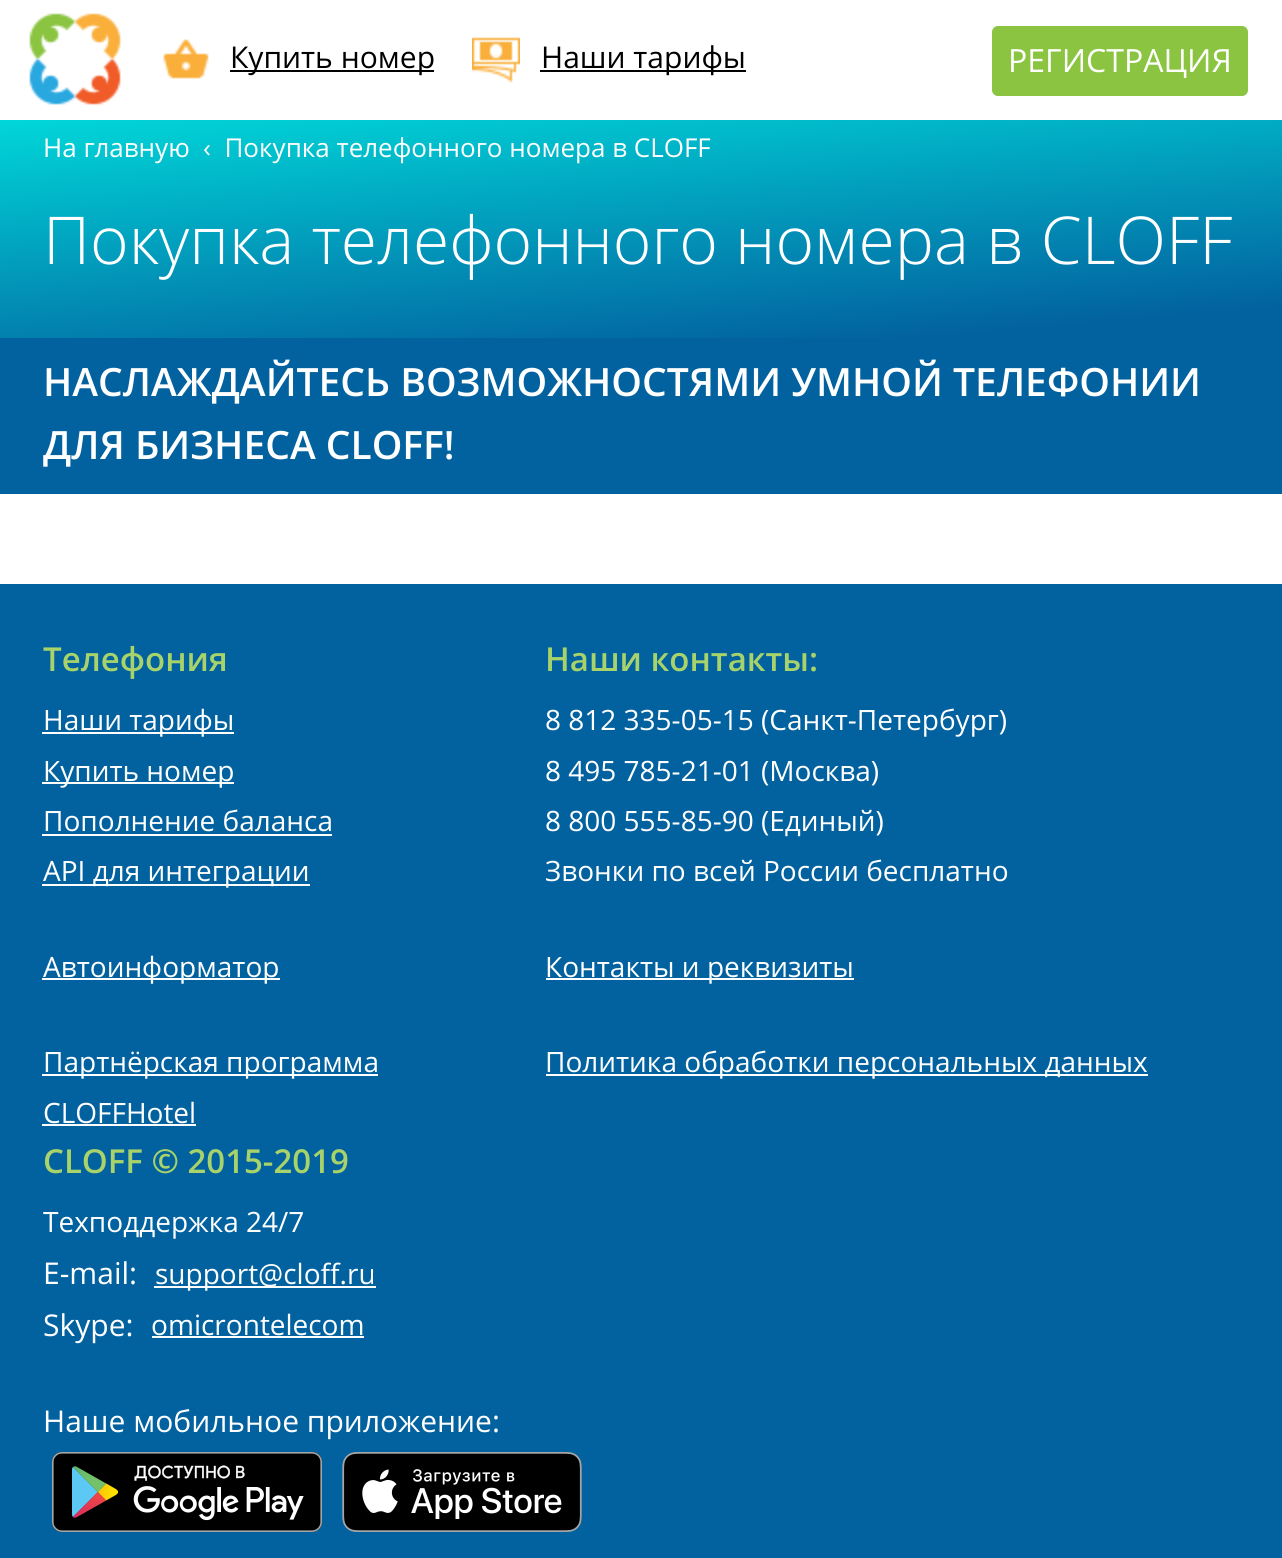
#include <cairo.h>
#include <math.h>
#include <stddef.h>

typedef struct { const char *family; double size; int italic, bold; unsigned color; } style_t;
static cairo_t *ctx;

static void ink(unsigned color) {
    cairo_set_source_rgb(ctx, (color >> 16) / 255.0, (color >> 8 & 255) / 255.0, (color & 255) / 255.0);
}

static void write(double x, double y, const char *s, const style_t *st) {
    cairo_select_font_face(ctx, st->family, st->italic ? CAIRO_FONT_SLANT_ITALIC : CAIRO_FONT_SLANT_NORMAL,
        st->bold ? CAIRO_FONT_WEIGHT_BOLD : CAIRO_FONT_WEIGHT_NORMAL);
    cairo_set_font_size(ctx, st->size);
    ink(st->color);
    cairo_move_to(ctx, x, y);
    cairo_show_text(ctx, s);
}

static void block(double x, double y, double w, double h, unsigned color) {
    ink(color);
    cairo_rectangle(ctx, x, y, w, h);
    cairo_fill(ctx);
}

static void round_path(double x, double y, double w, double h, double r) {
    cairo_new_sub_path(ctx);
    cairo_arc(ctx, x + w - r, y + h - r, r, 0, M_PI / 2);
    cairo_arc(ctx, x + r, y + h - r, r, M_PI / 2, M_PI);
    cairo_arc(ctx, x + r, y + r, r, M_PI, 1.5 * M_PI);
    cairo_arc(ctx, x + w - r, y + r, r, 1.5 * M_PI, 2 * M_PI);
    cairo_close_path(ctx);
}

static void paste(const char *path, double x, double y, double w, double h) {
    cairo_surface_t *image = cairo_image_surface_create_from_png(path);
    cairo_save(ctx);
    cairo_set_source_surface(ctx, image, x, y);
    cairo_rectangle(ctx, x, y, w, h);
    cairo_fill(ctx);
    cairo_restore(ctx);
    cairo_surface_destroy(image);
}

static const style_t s1 = {"Open Sans", 30, 0, 0, 0x000000};
static const style_t s2 = {"Open Sans", 32, 0, 0, 0xffffff};
static const style_t s3 = {"Open Sans", 26, 0, 0, 0xffffff};
static const style_t s4 = {"Open Sans Light", 66, 0, 0, 0xffffff};
static const style_t s5 = {"Open Sans SemiBold", 39, 0, 0, 0xffffff};
static const style_t s6 = {"Open Sans SemiBold", 33, 0, 0, 0xa8d36a};
static const style_t s7 = {"Open Sans", 28, 0, 0, 0xffffff};
static const style_t s8 = {"Open Sans", 30, 0, 0, 0xffffff};

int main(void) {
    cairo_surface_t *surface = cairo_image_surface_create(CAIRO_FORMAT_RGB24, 1282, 1558);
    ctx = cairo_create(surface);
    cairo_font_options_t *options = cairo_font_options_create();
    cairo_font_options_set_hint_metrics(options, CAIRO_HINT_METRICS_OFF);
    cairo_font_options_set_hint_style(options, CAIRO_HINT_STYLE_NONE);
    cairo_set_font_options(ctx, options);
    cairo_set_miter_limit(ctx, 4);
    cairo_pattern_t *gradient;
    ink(0xffffff);
    cairo_paint(ctx);
    paste("pic1.png", 29, 13, 92, 92);
    paste("pic2.png", 163, 39, 46, 40);
    block(230, 70, 204, 2, 0x000000);
    write(230, 68, "Купить номер", &s1);
    paste("pic3.png", 472, 37, 48, 46);
    block(540, 70, 206, 2, 0x000000);
    write(541, 68, "Наши тарифы", &s1);
    ink(0x8ac441);
    round_path(989, 23, 262, 76, 9);
    cairo_fill_preserve(ctx);
    ink(0xffffff);
    cairo_set_line_width(ctx, 6);
    cairo_stroke(ctx);
    write(1008, 72, "РЕГИСТРАЦИЯ", &s2);
    gradient = cairo_pattern_create_linear(627, 65, 655, 393);
    cairo_pattern_add_color_stop_rgba(gradient, 0, 0.004, 0.843, 0.851, 1);
    cairo_pattern_add_color_stop_rgba(gradient, 0.9, 0.008, 0.384, 0.624, 1);
    cairo_set_source(ctx, gradient);
    cairo_pattern_destroy(gradient);
    cairo_rectangle(ctx, 0, 120, 1282, 218);
    cairo_fill(ctx);
    write(43, 157, "На главную", &s3);
    write(203, 157, "‹  Покупка телефонного номера в CLOFF", &s3);
    write(43, 264, "Покупка телефонного номера в CLOFF", &s4);
    block(0, 338, 1282, 156, 0x02629f);
    write(43, 396, "НАСЛАЖДАЙТЕСЬ ВОЗМОЖНОСТЯМИ УМНОЙ ТЕЛЕФОНИИ", &s5);
    write(43, 459, "ДЛЯ БИЗНЕСА CLOFF!", &s5);
    block(0, 584, 1282, 974, 0x02629f);
    write(43, 671, "Телефония", &s6);
    block(42, 732, 192, 2, 0xffffff);
    write(43, 730, "Наши тарифы", &s7);
    block(42, 782, 192, 2, 0xffffff);
    write(43, 781, "Купить номер", &s7);
    write(43, 831, "Пополнение баланса", &s7);
    block(42, 834, 290, 2, 0xffffff);
    block(42, 884, 268, 2, 0xffffff);
    write(43, 881, "API для интеграции", &s7);
    block(42, 978, 238, 2, 0xffffff);
    write(43, 977, "Автоинформатор", &s7);
    block(42, 1074, 336, 2, 0xffffff);
    write(43, 1072, "Партнёрская программа", &s7);
    write(43, 1123, "CLOFFHotel", &s7);
    block(42, 1124, 154, 2, 0xffffff);
    write(545, 671, "Наши контакты:", &s6);
    write(545, 730, "8 812 335-05-15 (Санкт-Петербург)", &s7);
    write(545, 781, "8 495 785-21-01 (Москва)", &s7);
    write(545, 831, "8 800 555-85-90 (Единый)", &s7);
    write(545, 881, "Звонки по всей России бесплатно", &s7);
    block(546, 978, 308, 2, 0xffffff);
    write(545, 977, "Контакты и реквизиты", &s7);
    block(546, 1074, 602, 2, 0xffffff);
    write(545, 1072, "Политика обработки персональных данных", &s7);
    write(43, 1173, "CLOFF © 2015-2019", &s6);
    write(43, 1232, "Техподдержка 24/7", &s7);
    write(43, 1284, "E-mail:", &s8);
    block(154, 1286, 222, 2, 0xffffff);
    write(155, 1284, "support@cloff.ru", &s7);
    write(43, 1336, "Skype:", &s8);
    write(151, 1335, "omicrontelecom", &s7);
    block(152, 1336, 212, 2, 0xffffff);
    write(43, 1432, "Наше мобильное приложение:", &s8);
    paste("pic4.png", 52, 1452, 270, 80);
    paste("pic5.png", 342, 1452, 240, 80);
    cairo_surface_write_to_png(surface, "screenshot.png");
    cairo_font_options_destroy(options);
    cairo_destroy(ctx);
    cairo_surface_destroy(surface);
    return 0;
}
